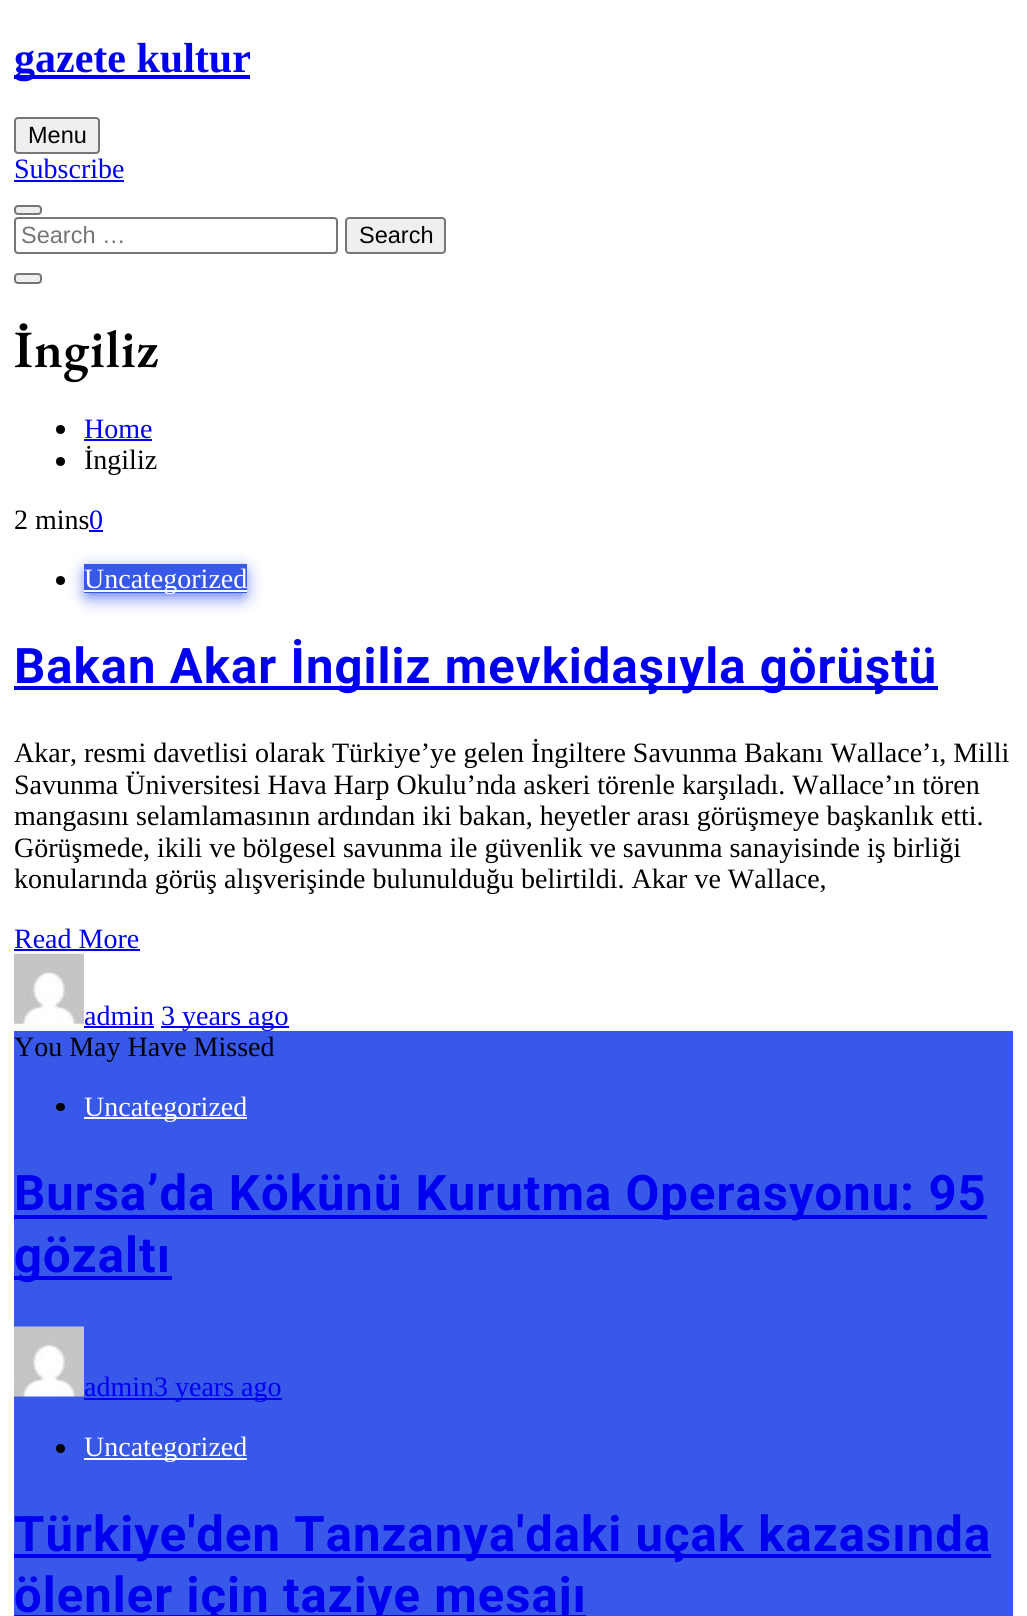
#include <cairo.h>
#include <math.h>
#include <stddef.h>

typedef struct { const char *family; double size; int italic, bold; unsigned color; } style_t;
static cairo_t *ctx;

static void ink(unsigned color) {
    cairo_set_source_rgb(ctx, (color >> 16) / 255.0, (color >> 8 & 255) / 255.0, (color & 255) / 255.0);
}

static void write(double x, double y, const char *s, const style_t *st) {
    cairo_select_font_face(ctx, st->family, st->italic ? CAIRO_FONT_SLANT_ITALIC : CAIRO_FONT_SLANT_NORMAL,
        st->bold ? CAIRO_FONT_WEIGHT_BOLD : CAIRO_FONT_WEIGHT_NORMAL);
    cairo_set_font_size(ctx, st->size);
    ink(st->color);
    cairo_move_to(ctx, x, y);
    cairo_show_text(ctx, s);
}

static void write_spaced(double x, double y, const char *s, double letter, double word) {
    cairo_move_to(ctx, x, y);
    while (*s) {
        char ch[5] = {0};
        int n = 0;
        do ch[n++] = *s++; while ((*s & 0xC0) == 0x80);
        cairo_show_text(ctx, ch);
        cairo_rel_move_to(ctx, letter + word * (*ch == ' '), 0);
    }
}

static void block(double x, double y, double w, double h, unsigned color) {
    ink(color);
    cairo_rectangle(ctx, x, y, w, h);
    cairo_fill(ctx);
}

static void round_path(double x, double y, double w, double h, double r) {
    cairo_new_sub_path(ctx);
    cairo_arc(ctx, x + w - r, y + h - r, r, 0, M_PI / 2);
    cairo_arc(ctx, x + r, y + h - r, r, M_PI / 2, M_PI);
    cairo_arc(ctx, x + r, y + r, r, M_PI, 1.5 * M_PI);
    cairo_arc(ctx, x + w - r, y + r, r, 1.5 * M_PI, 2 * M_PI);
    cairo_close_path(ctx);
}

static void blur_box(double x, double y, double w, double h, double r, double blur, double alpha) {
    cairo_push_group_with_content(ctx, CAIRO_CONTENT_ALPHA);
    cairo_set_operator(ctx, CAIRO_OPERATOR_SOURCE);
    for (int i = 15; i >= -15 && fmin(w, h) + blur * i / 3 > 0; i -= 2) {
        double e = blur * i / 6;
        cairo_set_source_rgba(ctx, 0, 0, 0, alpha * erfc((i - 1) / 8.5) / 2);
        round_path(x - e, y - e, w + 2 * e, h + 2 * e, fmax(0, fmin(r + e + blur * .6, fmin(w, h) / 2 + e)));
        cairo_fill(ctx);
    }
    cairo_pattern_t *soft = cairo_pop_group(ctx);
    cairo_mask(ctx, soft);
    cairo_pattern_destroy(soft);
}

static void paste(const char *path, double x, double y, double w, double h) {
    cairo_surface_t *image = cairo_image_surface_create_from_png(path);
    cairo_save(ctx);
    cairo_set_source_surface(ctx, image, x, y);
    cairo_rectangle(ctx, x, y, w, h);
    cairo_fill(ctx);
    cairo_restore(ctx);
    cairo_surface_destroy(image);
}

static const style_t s1 = {"Liberation Serif", 42, 0, 1, 0x0000ee};
static const style_t s2 = {"Liberation Sans", 23.5, 0, 0, 0x000000};
static const style_t s3 = {"Liberation Serif", 28, 0, 0, 0x0000ee};
static const style_t s4 = {"Liberation Sans", 23.5, 0, 0, 0x757575};
static const style_t s5 = {"Liberation Serif", 28, 0, 0, 0x000000};
static const style_t s6 = {"Liberation Serif", 28, 0, 0, 0xffffff};

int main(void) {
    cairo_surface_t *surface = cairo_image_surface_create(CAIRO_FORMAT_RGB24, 1027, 1616);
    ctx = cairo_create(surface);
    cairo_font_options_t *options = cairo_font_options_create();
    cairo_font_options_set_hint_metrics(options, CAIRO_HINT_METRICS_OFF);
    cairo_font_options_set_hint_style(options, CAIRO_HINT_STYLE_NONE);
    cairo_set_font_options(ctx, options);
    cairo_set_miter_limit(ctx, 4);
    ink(0xffffff);
    cairo_paint(ctx);
    block(14, 75, 236, 4, 0x0000ee);
    write(14, 72, "gazete kultur", &s1);
    ink(0xefefef);
    round_path(15, 118, 84, 35, 3);
    cairo_fill_preserve(ctx);
    ink(0x767676);
    cairo_stroke(ctx);
    write(28, 143, "Menu", &s2);
    write(14, 178, "Subscribe", &s3);
    block(14, 180, 110, 2, 0x0000ee);
    ink(0xefefef);
    round_path(15, 206, 26, 8, 3);
    cairo_fill_preserve(ctx);
    ink(0x767676);
    cairo_stroke(ctx);
    round_path(15, 218, 322, 35, 3);
    cairo_stroke(ctx);
    write(21, 243, "Search …", &s4);
    ink(0xefefef);
    round_path(346, 218, 99, 35, 3);
    cairo_fill_preserve(ctx);
    ink(0x767676);
    cairo_stroke(ctx);
    write(359, 243, "Search", &s2);
    ink(0xefefef);
    round_path(15, 274, 26, 9, 3);
    cairo_fill_preserve(ctx);
    ink(0x767676);
    cairo_stroke(ctx);
    cairo_select_font_face(ctx, "EB Garamond SemiBold", CAIRO_FONT_SLANT_NORMAL, CAIRO_FONT_WEIGHT_NORMAL);
    cairo_set_font_size(ctx, 52.5);
    ink(0x000000);
    write_spaced(14, 367, "İngiliz", 1.05, 0);
    cairo_new_path(ctx);
    cairo_arc(ctx, 60.5, 429.5, 4.5, 0, 2 * M_PI);
    cairo_fill(ctx);
    write(84, 438, "Home", &s3);
    block(84, 439, 68, 2, 0x0000ee);
    ink(0x000000);
    cairo_new_path(ctx);
    cairo_arc(ctx, 60.5, 461.5, 4.5, 0, 2 * M_PI);
    cairo_fill(ctx);
    write(84, 469, "İngiliz", &s5);
    write(14, 529, "2 mins", &s5);
    block(89, 530, 14, 2, 0x0000ee);
    write(89, 529, "0", &s3);
    ink(0x000000);
    cairo_new_path(ctx);
    cairo_arc(ctx, 60.5, 580.5, 4.5, 0, 2 * M_PI);
    cairo_fill(ctx);
    ink(0x3858e9);
    blur_box(88, 572, 155, 23, 0, 9, 1);
    block(84, 564, 163, 29, 0x3858e9);
    block(84, 590, 163, 2, 0xffffff);
    write(84, 588, "Uncategorized", &s6);
    block(14, 686, 924, 4, 0x0000ee);
    cairo_select_font_face(ctx, "Roboto", CAIRO_FONT_SLANT_NORMAL, CAIRO_FONT_WEIGHT_BOLD);
    cairo_set_font_size(ctx, 49);
    write_spaced(14, 683, "Bakan Akar İngiliz mevkidaşıyla görüştü", 1.05, 0);
    write(14, 762, "Akar, resmi davetlisi olarak Türkiye’ye gelen İngiltere Savunma Bakanı Wallace’ı, Milli", &s5);
    write(14, 794, "Savunma Üniversitesi Hava Harp Okulu’nda askeri törenle karşıladı. Wallace’ın tören", &s5);
    write(14, 825, "mangasını selamlamasının ardından iki bakan, heyetler arası görüşmeye başkanlık etti.", &s5);
    write(14, 857, "Görüşmede, ikili ve bölgesel savunma ile güvenlik ve savunma sanayisinde iş birliği", &s5);
    write(14, 888, "konularında görüş alışverişinde bulunulduğu belirtildi. Akar ve Wallace,", &s5);
    write(14, 948, "Read More", &s3);
    block(14, 949, 126, 2, 0x0000ee);
    paste("pic1.png", 14, 953, 70, 71);
    write(84, 1025, "admin", &s3);
    block(84, 1026, 70, 2, 0x0000ee);
    block(161, 1026, 128, 2, 0x0000ee);
    block(14, 1031, 999, 585, 0x3858e9);
    write(161, 1025, "3 years ago", &s3);
    write(14, 1056, "You May Have Missed", &s5);
    round_path(56, 1103, 9, 8, 4);
    cairo_fill(ctx);
    block(84, 1117, 163, 2, 0xffffff);
    write(84, 1116, "Uncategorized", &s6);
    block(14, 1215, 973, 4, 0x0000ee);
    cairo_select_font_face(ctx, "Roboto", CAIRO_FONT_SLANT_NORMAL, CAIRO_FONT_WEIGHT_BOLD);
    cairo_set_font_size(ctx, 49);
    write_spaced(14, 1210, "Bursa’da Kökünü Kurutma Operasyonu: 95", 1.05, 0);
    block(14, 1276, 158, 4, 0x0000ee);
    write_spaced(14, 1272, "gözaltı", 1.05, 0);
    paste("pic2.png", 14, 1326, 70, 71);
    block(84, 1398, 198, 2, 0x0000ee);
    write(84, 1396, "admin3 years ago", &s3);
    ink(0x000000);
    cairo_new_path(ctx);
    cairo_arc(ctx, 60.5, 1448.5, 4.5, 0, 2 * M_PI);
    cairo_fill(ctx);
    block(84, 1458, 163, 2, 0xffffff);
    write(84, 1456, "Uncategorized", &s6);
    block(14, 1554, 977, 4, 0x0000ee);
    cairo_select_font_face(ctx, "Roboto", CAIRO_FONT_SLANT_NORMAL, CAIRO_FONT_WEIGHT_BOLD);
    cairo_set_font_size(ctx, 49);
    write_spaced(14, 1551, "Türkiye'den Tanzanya'daki uçak kazasında", 1.05, 0);
    block(14, 1615, 572, 1, 0x0000ee);
    write_spaced(14, 1612, "ölenler için taziye mesajı", 1.05, 0);
    cairo_surface_write_to_png(surface, "screenshot.png");
    cairo_font_options_destroy(options);
    cairo_destroy(ctx);
    cairo_surface_destroy(surface);
    return 0;
}
